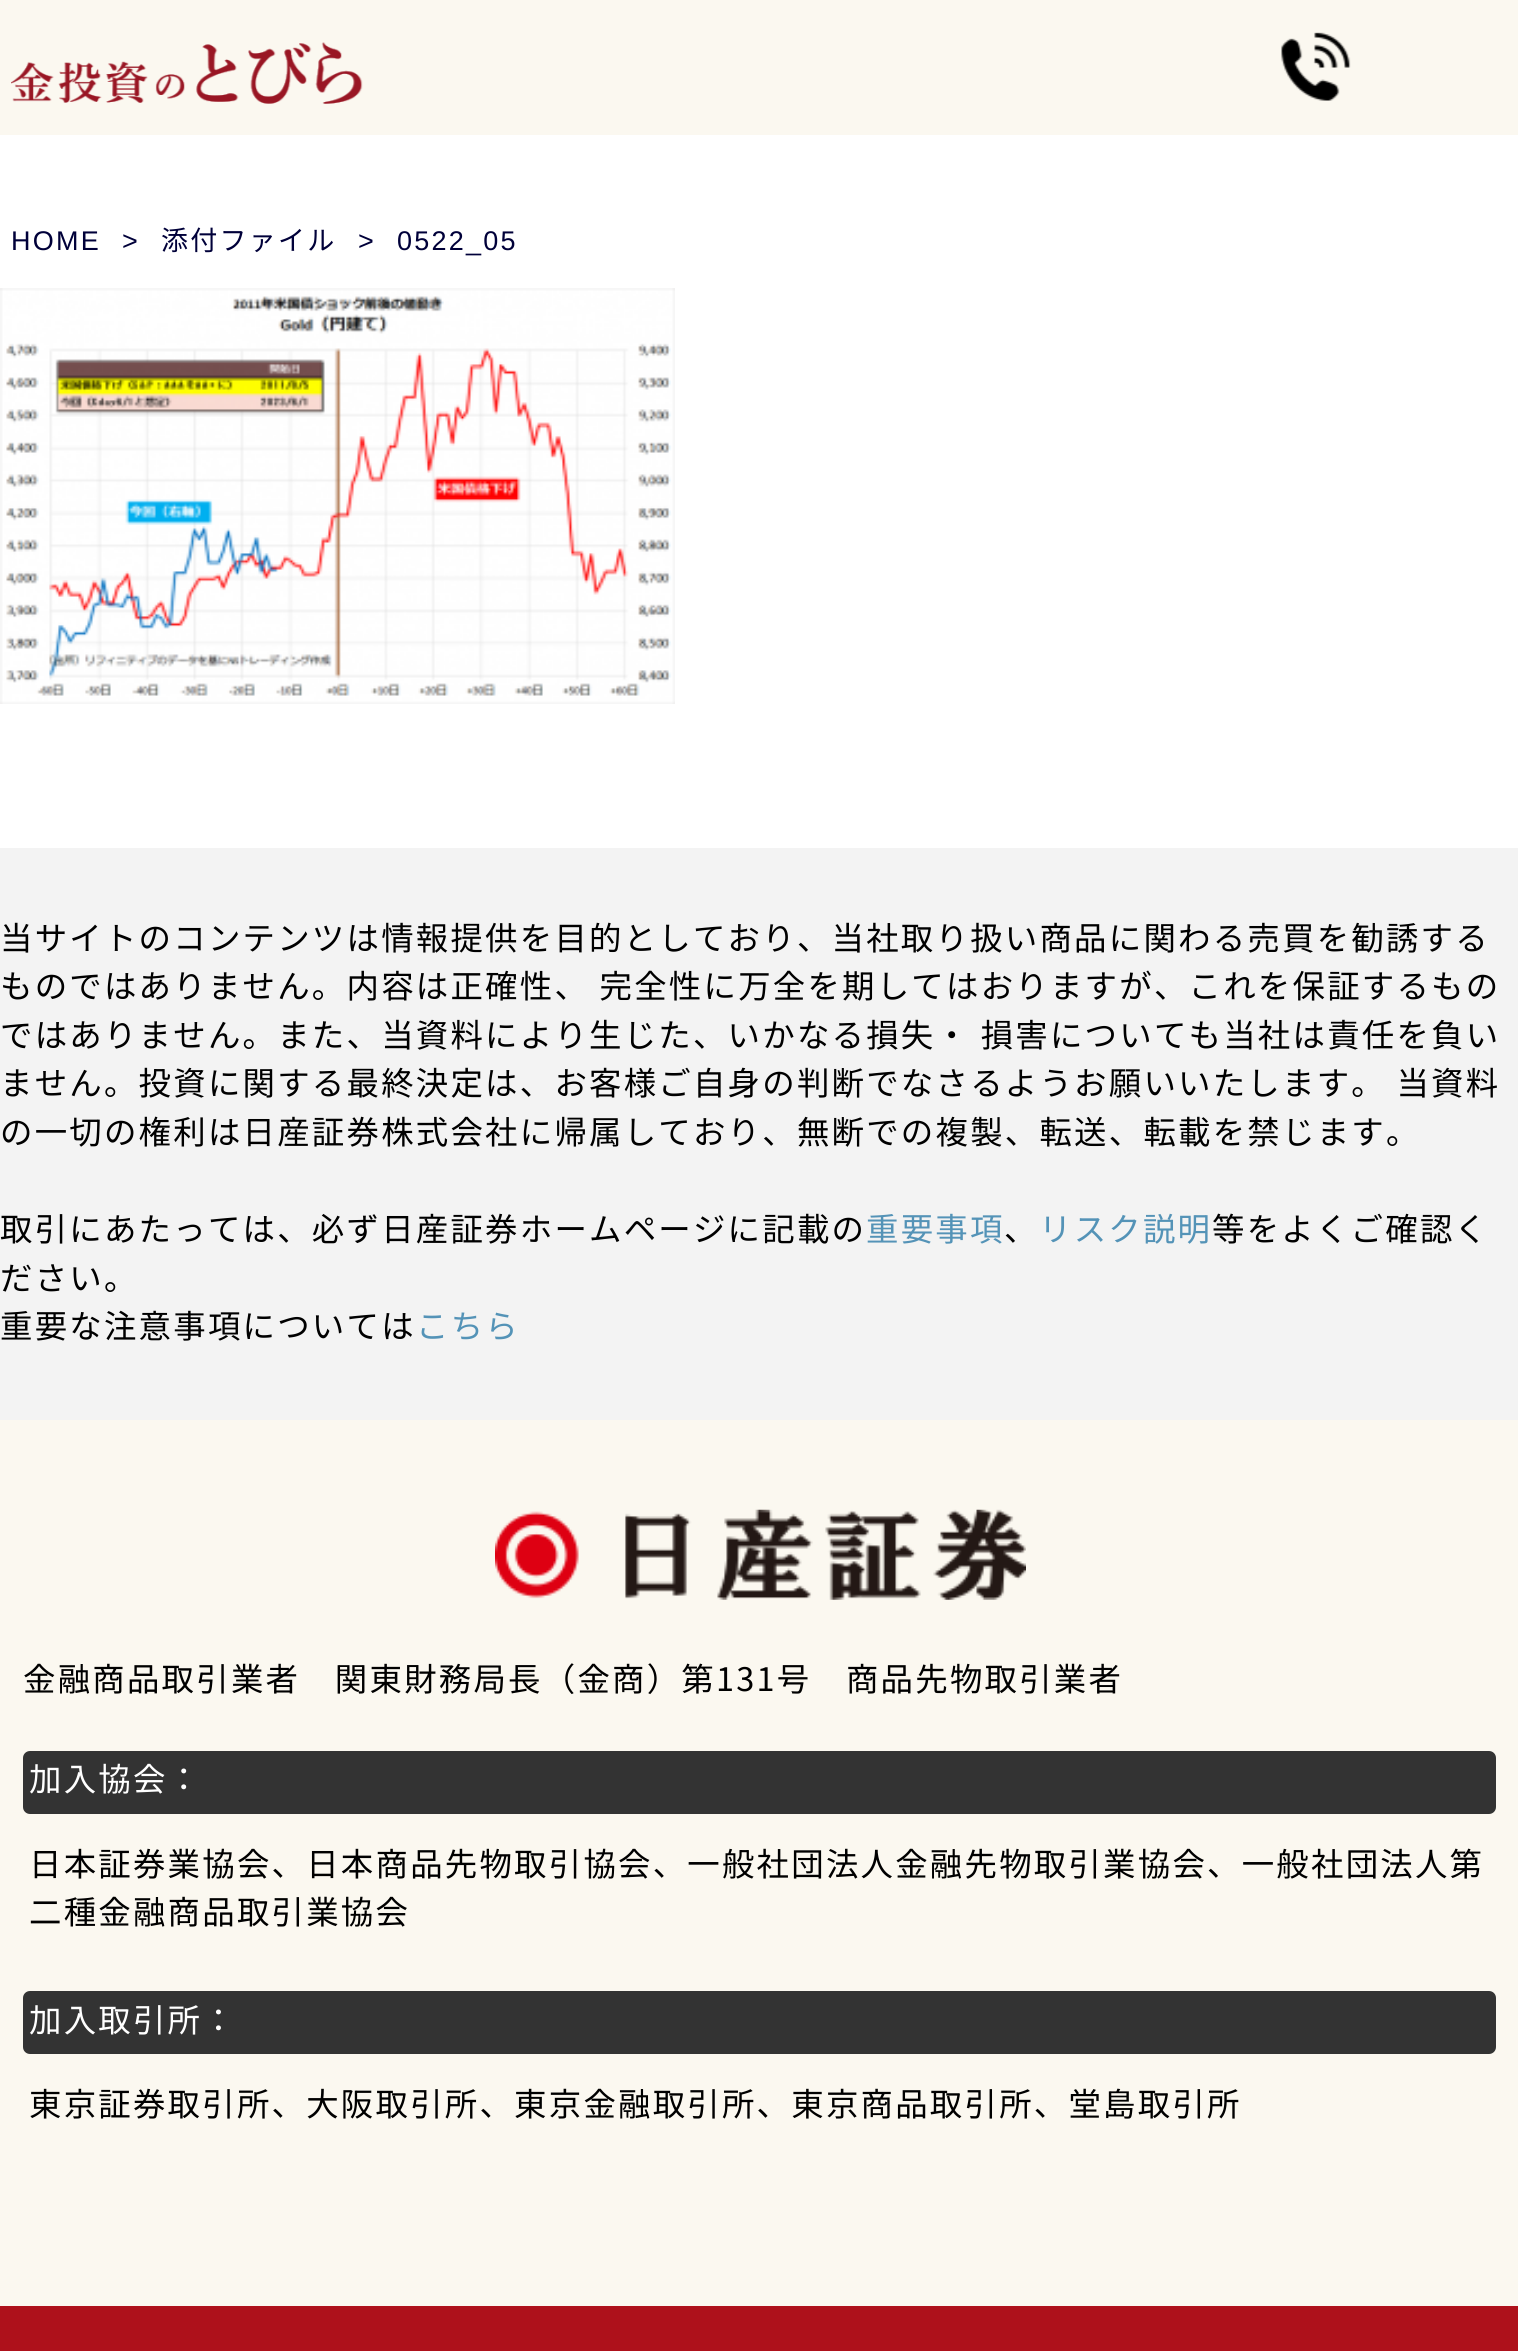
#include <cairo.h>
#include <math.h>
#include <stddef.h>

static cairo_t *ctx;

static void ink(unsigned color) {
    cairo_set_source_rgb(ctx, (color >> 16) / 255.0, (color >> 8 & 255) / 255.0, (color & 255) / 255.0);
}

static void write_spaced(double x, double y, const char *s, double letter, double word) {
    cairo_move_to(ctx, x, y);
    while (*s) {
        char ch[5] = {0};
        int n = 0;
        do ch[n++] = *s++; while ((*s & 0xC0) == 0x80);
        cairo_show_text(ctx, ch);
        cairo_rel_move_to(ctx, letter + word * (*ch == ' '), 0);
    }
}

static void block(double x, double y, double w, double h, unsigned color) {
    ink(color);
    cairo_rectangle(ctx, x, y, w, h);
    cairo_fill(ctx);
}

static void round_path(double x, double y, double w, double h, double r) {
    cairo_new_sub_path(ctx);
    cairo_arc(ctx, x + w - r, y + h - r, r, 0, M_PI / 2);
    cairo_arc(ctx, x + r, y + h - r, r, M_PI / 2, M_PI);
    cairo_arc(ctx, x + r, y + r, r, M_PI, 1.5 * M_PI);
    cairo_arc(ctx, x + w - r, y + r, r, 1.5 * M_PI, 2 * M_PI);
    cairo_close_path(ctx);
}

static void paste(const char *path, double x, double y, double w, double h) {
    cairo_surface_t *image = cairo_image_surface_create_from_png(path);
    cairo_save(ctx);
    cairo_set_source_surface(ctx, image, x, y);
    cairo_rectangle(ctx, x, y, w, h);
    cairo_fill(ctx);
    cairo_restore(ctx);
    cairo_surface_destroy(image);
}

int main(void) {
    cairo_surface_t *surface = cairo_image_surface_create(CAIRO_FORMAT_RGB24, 1518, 2351);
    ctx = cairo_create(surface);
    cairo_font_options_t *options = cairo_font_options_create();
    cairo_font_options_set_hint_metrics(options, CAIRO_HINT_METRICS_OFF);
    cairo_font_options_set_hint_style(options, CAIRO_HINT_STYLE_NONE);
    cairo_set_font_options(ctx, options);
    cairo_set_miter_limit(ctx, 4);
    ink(0xffffff);
    cairo_paint(ctx);
    block(0, 0, 1518, 135, 0xfbf8f0);
    paste("pic1.png", 11, 42, 352, 62);
    paste("pic2.png", 1281, 32, 70, 69);
    cairo_select_font_face(ctx, "Liberation Sans", CAIRO_FONT_SLANT_NORMAL, CAIRO_FONT_WEIGHT_NORMAL);
    cairo_set_font_size(ctx, 27);
    ink(0x000039);
    write_spaced(11, 250, "HOME", 2.25, 0);
    write_spaced(122, 250, ">", 2.25, 0);
    cairo_select_font_face(ctx, "Noto Sans JP", CAIRO_FONT_SLANT_NORMAL, CAIRO_FONT_WEIGHT_NORMAL);
    write_spaced(161, 250, "添付ファイル", 2.25, 0);
    cairo_select_font_face(ctx, "Liberation Sans", CAIRO_FONT_SLANT_NORMAL, CAIRO_FONT_WEIGHT_NORMAL);
    write_spaced(358, 250, ">", 2.25, 0);
    write_spaced(397, 250, "0522_05", 2.25, 0);
    paste("pic3.png", 0, 288, 675, 416);
    block(0, 848, 1518, 572, 0xf3f3f3);
    cairo_select_font_face(ctx, "Noto Sans JP", CAIRO_FONT_SLANT_NORMAL, CAIRO_FONT_WEIGHT_NORMAL);
    cairo_set_font_size(ctx, 32.4);
    ink(0x000000);
    write_spaced(0, 950, "当サイトのコンテンツは情報提供を目的としており、当社取り扱い商品に関わる売買を勧誘する", 2.25, 0);
    write_spaced(0, 998, "ものではありません。内容は正確性、 完全性に万全を期してはおりますが、これを保証するもの", 2.25, 1);
    write_spaced(0, 1047, "ではありません。また、当資料により生じた、いかなる損失・ 損害についても当社は責任を負い", 2.25, 1);
    write_spaced(0, 1095, "ません。投資に関する最終決定は、お客様ご自身の判断でなさるようお願いいたします。 当資料", 2.25, 1);
    write_spaced(0, 1144, "の一切の権利は日産証券株式会社に帰属しており、無断での複製、転送、転載を禁じます。", 2.25, 0);
    write_spaced(0, 1241, "取引にあたっては、必ず日産証券ホームページに記載の", 2.25, 0);
    ink(0x5493b7);
    write_spaced(866, 1241, "重要事項", 2.25, 0);
    ink(0x000000);
    write_spaced(1004, 1241, "、", 2.25, 0);
    ink(0x5493b7);
    write_spaced(1039, 1241, "リスク説明", 2.25, 0);
    ink(0x000000);
    write_spaced(1212, 1241, "等をよくご確認く", 2.25, 0);
    write_spaced(0, 1290, "ださい。", 2.25, 0);
    write_spaced(0, 1338, "重要な注意事項については", 2.25, 0);
    ink(0x5493b7);
    write_spaced(416, 1338, "こちら", 2.25, 0);
    block(0, 1420, 1518, 886, 0xfbf8f0);
    paste("pic4.png", 495, 1509, 531, 91);
    ink(0x000000);
    write_spaced(23, 1691, "金融商品取引業者　関東財務局長（金商）第131号　商品先物取引業者", 2.25, 0);
    ink(0x333333);
    round_path(23, 1751, 1473, 63, 7);
    cairo_fill(ctx);
    ink(0xffffff);
    write_spaced(29, 1791, "加入協会：", 2.25, 0);
    ink(0x000000);
    write_spaced(29, 1876, "日本証券業協会、日本商品先物取引協会、一般社団法人金融先物取引業協会、一般社団法人第", 2.25, 0);
    write_spaced(29, 1924, "二種金融商品取引業協会", 2.25, 0);
    ink(0x333333);
    round_path(23, 1991, 1473, 63, 7);
    cairo_fill(ctx);
    ink(0xffffff);
    write_spaced(29, 2032, "加入取引所：", 2.25, 0);
    ink(0x000000);
    write_spaced(29, 2116, "東京証券取引所、大阪取引所、東京金融取引所、東京商品取引所、堂島取引所", 2.25, 0);
    block(0, 2306, 1518, 45, 0xae111b);
    cairo_surface_write_to_png(surface, "screenshot.png");
    cairo_font_options_destroy(options);
    cairo_destroy(ctx);
    cairo_surface_destroy(surface);
    return 0;
}
